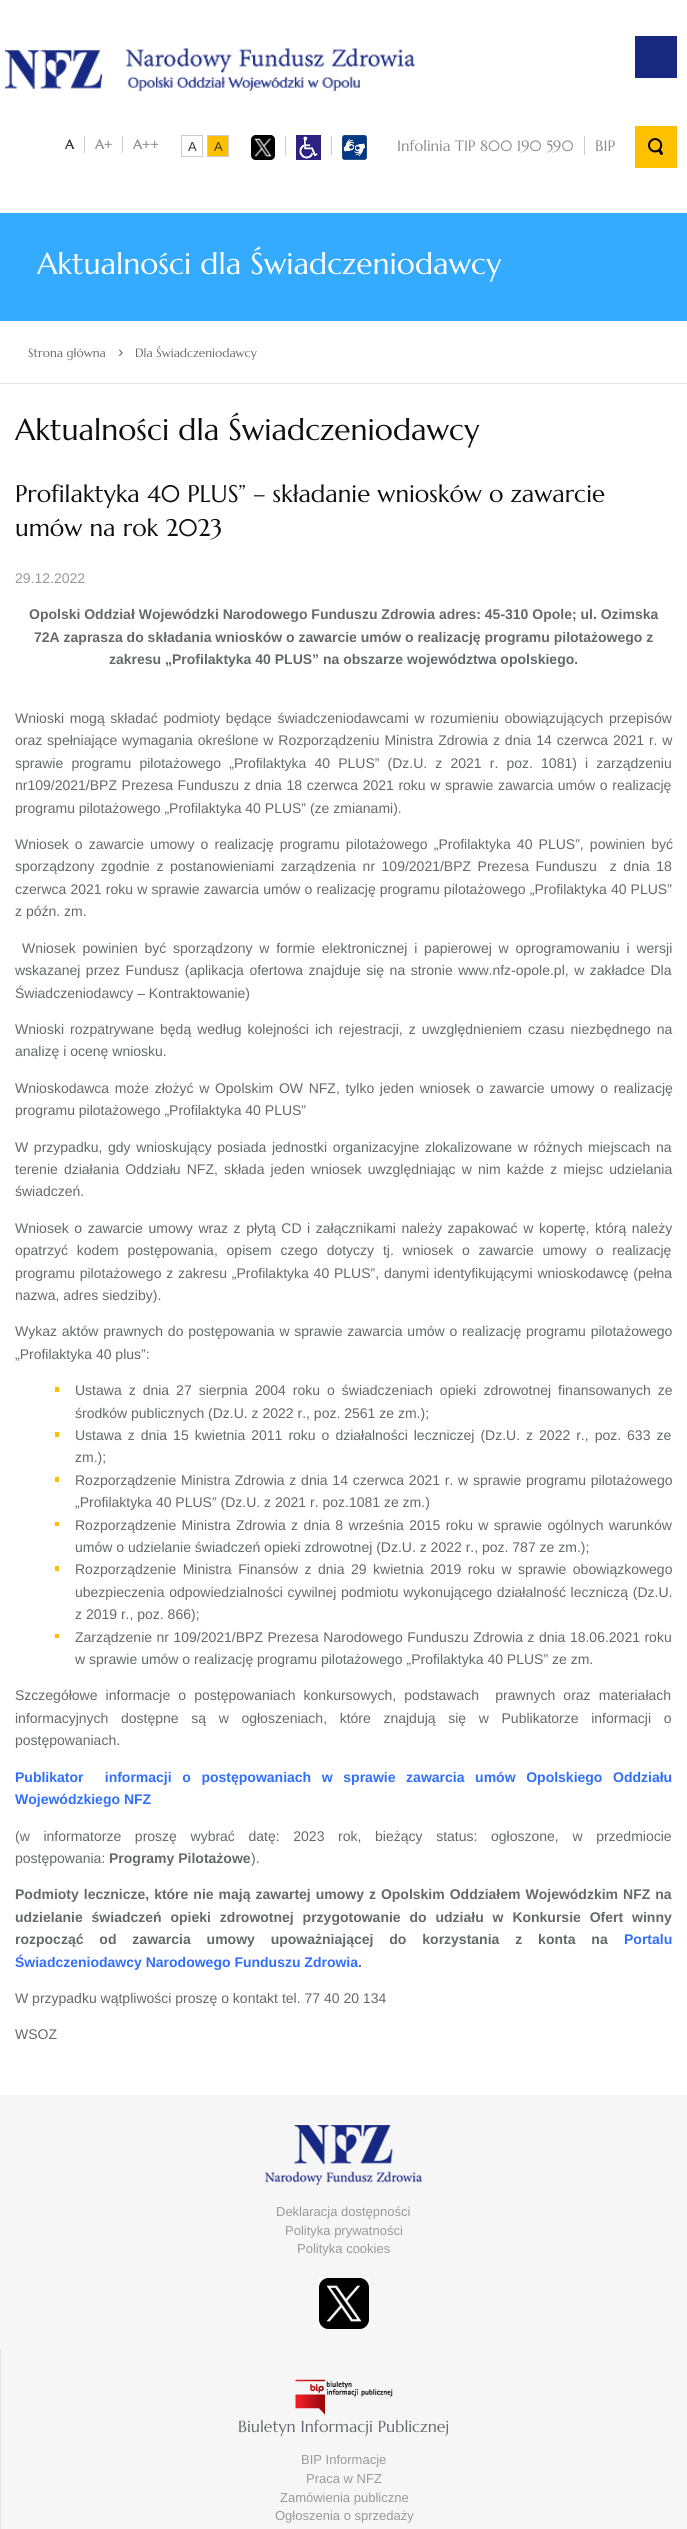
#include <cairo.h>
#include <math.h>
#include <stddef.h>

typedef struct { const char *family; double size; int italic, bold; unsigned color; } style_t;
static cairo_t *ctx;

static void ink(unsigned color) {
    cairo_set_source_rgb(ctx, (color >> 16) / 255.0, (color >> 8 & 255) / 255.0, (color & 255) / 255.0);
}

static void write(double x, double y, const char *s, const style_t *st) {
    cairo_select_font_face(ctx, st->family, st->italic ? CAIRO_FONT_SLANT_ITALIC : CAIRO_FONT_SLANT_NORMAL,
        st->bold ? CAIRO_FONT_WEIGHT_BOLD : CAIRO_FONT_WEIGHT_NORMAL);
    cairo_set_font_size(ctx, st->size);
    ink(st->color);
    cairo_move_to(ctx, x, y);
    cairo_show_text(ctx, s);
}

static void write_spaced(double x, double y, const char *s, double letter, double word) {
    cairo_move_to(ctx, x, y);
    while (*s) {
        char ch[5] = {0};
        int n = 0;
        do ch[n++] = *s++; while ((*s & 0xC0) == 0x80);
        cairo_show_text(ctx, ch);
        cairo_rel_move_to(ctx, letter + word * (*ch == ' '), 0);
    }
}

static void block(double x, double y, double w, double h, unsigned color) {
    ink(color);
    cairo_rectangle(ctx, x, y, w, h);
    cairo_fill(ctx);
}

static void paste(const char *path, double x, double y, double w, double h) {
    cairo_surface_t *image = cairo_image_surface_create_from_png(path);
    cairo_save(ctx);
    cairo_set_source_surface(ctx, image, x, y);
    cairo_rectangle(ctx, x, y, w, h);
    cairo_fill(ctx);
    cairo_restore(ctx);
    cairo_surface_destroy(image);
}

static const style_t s1 = {"Marcellus", 13, 0, 1, 0x333333};
static const style_t s2 = {"Marcellus", 13, 0, 1, 0x8c8d8d};
static const style_t s3 = {"Liberation Sans", 13, 0, 0, 0x333333};
static const style_t s4 = {"Marcellus", 15, 0, 0, 0x8c8d8d};
static const style_t s5 = {"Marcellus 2", 30, 0, 0, 0xffffff};
static const style_t s6 = {"Marcellus", 12, 0, 0, 0x66686d};
static const style_t s7 = {"Liberation Sans", 16, 0, 0, 0x66686d};
static const style_t s8 = {"Marcellus 2", 30, 0, 0, 0x0f0f0f};
static const style_t s9 = {"Marcellus 2", 24, 0, 0, 0x0f0f0f};
static const style_t s10 = {"Liberation Sans", 14, 0, 0, 0x999999};
static const style_t s11 = {"Liberation Sans", 14, 0, 1, 0x66686d};
static const style_t s12 = {"Liberation Sans", 14, 0, 0, 0x66686d};
static const style_t s13 = {"Liberation Sans", 14, 0, 1, 0x306eff};
static const style_t s14 = {"Liberation Sans", 13, 0, 0, 0x999999};
static const style_t s15 = {"Marcellus", 16, 0, 0, 0x66686d};

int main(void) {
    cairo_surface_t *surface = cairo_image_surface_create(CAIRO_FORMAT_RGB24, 687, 2529);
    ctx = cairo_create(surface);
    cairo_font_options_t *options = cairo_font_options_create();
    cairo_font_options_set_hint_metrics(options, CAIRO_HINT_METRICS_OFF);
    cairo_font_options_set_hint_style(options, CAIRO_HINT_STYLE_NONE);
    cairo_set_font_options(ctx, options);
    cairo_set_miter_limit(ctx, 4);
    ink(0xffffff);
    cairo_paint(ctx);
    paste("pic1.png", 5, 48, 410, 43);
    block(635, 36, 42, 42, 0x17297f);
    write(65, 149, "A", &s1);
    write(95, 149, "A+", &s2);
    block(84, 136, 1, 17, 0xcccccc);
    write(133, 149, "A++", &s2);
    block(122, 136, 1, 17, 0xcccccc);
    cairo_rectangle(ctx, 181.5, 135.5, 21, 21);
    cairo_set_line_width(ctx, 1);
    cairo_stroke(ctx);
    write(188, 151, "A", &s3);
    ink(0xffc000);
    cairo_rectangle(ctx, 207.5, 135.5, 21, 21);
    cairo_fill_preserve(ctx);
    ink(0xcccccc);
    cairo_stroke(ctx);
    write(214, 151, "A", &s3);
    paste("pic2.png", 251, 135, 24, 25);
    block(285, 136, 1, 19, 0xcccccc);
    paste("pic3.png", 296, 135, 25, 25);
    block(331, 136, 1, 19, 0xcccccc);
    paste("pic4.png", 342, 135, 25, 25);
    write(397, 151, "Infolinia TIP 800 190 590", &s4);
    write(595, 151, "BIP", &s4);
    block(584, 136, 1, 19, 0xcccccc);
    block(635, 126, 42, 42, 0xffc000);
    paste("pic5.png", 648, 138, 15, 17);
    block(0, 213, 687, 108, 0x34abff);
    write(37, 274, "Aktualności dla Świadczeniodawcy", &s5);
    block(0, 383, 687, 1, 0xe5e5e5);
    write(28, 357, "Strona główna", &s6);
    write(118, 357, "›", &s7);
    write(135, 357, "Dla Świadczeniodawcy", &s6);
    write(15, 440, "Aktualności dla Świadczeniodawcy", &s8);
    write(15, 502, "Profilaktyka 40 PLUS” – składanie wniosków o zawarcie", &s9);
    write(15, 536, "umów na rok 2023", &s9);
    write(15, 583, "29.12.2022", &s10);
    write(29, 619, "Opolski Oddział Wojewódzki Narodowego Funduszu Zdrowia adres: 45-310 Opole; ul. Ozimska", &s11);
    write(34, 642, "72A zaprasza do składania wniosków o zawarcie umów o realizację programu pilotażowego z", &s11);
    write(109, 664, "zakresu „Profilaktyka 40 PLUS” na obszarze województwa opolskiego.", &s11);
    cairo_select_font_face(ctx, "Liberation Sans", CAIRO_FONT_SLANT_NORMAL, CAIRO_FONT_WEIGHT_NORMAL);
    write_spaced(15, 723, "Wnioski mogą składać podmioty będące świadczeniodawcami w rozumieniu obowiązujących przepisów", 0, 1.75);
    write_spaced(15, 745, "oraz spełniające wymagania określone w Rozporządzeniu Ministra Zdrowia z dnia 14 czerwca 2021 r. w", 0, 1);
    write_spaced(15, 768, "sprawie programu pilotażowego „Profilaktyka 40 PLUS” (Dz.U. z 2021 r. poz. 1081) i zarządzeniu", 0, 4.25);
    write_spaced(15, 790, "nr109/2021/BPZ Prezesa Funduszu z dnia 18 czerwca 2021 roku w sprawie zawarcia umów o realizację", 0, 0.75);
    write(15, 813, "programu pilotażowego „Profilaktyka 40 PLUS” (ze zmianami).", &s12);
    write_spaced(15, 849, "Wniosek o zawarcie umowy o realizację programu pilotażowego „Profilaktyka 40 PLUS”, powinien być", 0, 2.25);
    write_spaced(15, 871, "sporządzony zgodnie z postanowieniami zarządzenia nr 109/2021/BPZ Prezesa Funduszu  z dnia 18", 0, 2.6);
    write_spaced(15, 894, "czerwca 2021 roku w sprawie zawarcia umów o realizację programu pilotażowego „Profilaktyka 40 PLUS”", 0, 0.25);
    write(15, 916, "z późn. zm.", &s12);
    write_spaced(22, 953, "Wniosek powinien być sporządzony w formie elektronicznej i papierowej w oprogramowaniu i wersji", 0, 2.9);
    write_spaced(15, 975, "wskazanej przez Fundusz (aplikacja ofertowa znajduje się na stronie www.nfz-opole.pl, w zakładce Dla", 0, 1.6);
    write(15, 998, "Świadczeniodawcy – Kontraktowanie)", &s12);
    write_spaced(15, 1034, "Wnioski rozpatrywane będą według kolejności ich rejestracji, z uwzględnieniem czasu niezbędnego na", 0, 2.1);
    write(15, 1056, "analizę i ocenę wniosku.", &s12);
    write_spaced(15, 1093, "Wnioskodawca może złożyć w Opolskim OW NFZ, tylko jeden wniosek o zawarcie umowy o realizację", 0, 1.75);
    write(15, 1115, "programu pilotażowego „Profilaktyka 40 PLUS”", &s12);
    write_spaced(15, 1152, "W przypadku, gdy wnioskujący posiada jednostki organizacyjne zlokalizowane w różnych miejscach na", 0, 1.75);
    write_spaced(15, 1174, "terenie działania Oddziału NFZ, składa jeden wniosek uwzględniając w nim każde z miejsc udzielania", 0, 2.25);
    write(15, 1196, "świadczeń.", &s12);
    write_spaced(15, 1233, "Wniosek o zawarcie umowy wraz z płytą CD i załącznikami należy zapakować w kopertę, którą należy", 0, 1.7);
    write_spaced(15, 1255, "opatrzyć kodem postępowania, opisem czego dotyczy tj. wniosek o zawarcie umowy o realizację", 0, 4.9);
    write_spaced(15, 1278, "programu pilotażowego z zakresu „Profilaktyka 40 PLUS”, danymi identyfikującymi wnioskodawcę (pełna", 0, 0.9);
    write(15, 1300, "nazwa, adres siedziby).", &s12);
    write_spaced(15, 1336, "Wykaz aktów prawnych do postępowania w sprawie zawarcia umów o realizację programu pilotażowego", 0, 0.9);
    write(15, 1359, "„Profilaktyka 40 plus”:", &s12);
    block(55, 1387, 4, 5, 0xffc000);
    ink(0x66686d);
    write_spaced(75, 1395, "Ustawa z dnia 27 sierpnia 2004 roku o świadczeniach opieki zdrowotnej finansowanych ze", 0, 3.1);
    write(75, 1418, "środków publicznych (Dz.U. z 2022 r., poz. 2561 ze zm.);", &s12);
    block(55, 1432, 4, 5, 0xffc000);
    ink(0x66686d);
    write_spaced(75, 1440, "Ustawa z dnia 15 kwietnia 2011 roku o działalności leczniczej (Dz.U. z 2022 r., poz. 633 ze", 0, 2.1);
    write(75, 1462, "zm.);", &s12);
    block(55, 1477, 4, 5, 0xffc000);
    ink(0x66686d);
    write_spaced(75, 1485, "Rozporządzenie Ministra Zdrowia z dnia 14 czerwca 2021 r. w sprawie programu pilotażowego", 0, 0.9);
    write(75, 1507, "„Profilaktyka 40 PLUS” (Dz.U. z 2021 r. poz.1081 ze zm.)", &s12);
    block(55, 1522, 4, 4, 0xffc000);
    ink(0x66686d);
    write_spaced(75, 1530, "Rozporządzenie Ministra Zdrowia z dnia 8 września 2015 roku w sprawie ogólnych warunków", 0, 1.5);
    write(75, 1552, "umów o udzielanie świadczeń opieki zdrowotnej (Dz.U. z 2022 r., poz. 787 ze zm.);", &s12);
    block(55, 1566, 4, 5, 0xffc000);
    ink(0x66686d);
    write_spaced(75, 1574, "Rozporządzenie Ministra Finansów z dnia 29 kwietnia 2019 roku w sprawie obowiązkowego", 0, 2.6);
    write_spaced(75, 1597, "ubezpieczenia odpowiedzialności cywilnej podmiotu wykonującego działalność leczniczą (Dz.U.", 0, 0.75);
    write(75, 1619, "z 2019 r., poz. 866);", &s12);
    block(55, 1634, 4, 4, 0xffc000);
    ink(0x66686d);
    write_spaced(75, 1642, "Zarządzenie nr 109/2021/BPZ Prezesa Narodowego Funduszu Zdrowia z dnia 18.06.2021 roku", 0, 0.6);
    write(75, 1664, "w sprawie umów o realizację programu pilotażowego „Profilaktyka 40 PLUS” ze zm.", &s12);
    write_spaced(15, 1700, "Szczegółowe informacje o postępowaniach konkursowych, podstawach  prawnych oraz materiałach", 0, 4.25);
    write_spaced(15, 1723, "informacyjnych dostępne są w ogłoszeniach, które znajdują się w Publikatorze informacji o", 0, 8.75);
    write(15, 1745, "postępowaniach.", &s12);
    cairo_select_font_face(ctx, "Liberation Sans", CAIRO_FONT_SLANT_NORMAL, CAIRO_FONT_WEIGHT_BOLD);
    ink(0x306eff);
    write_spaced(15, 1782, "Publikator  informacji o postępowaniach w sprawie zawarcia umów Opolskiego Oddziału", 0, 6.75);
    write(15, 1804, "Wojewódzkiego NFZ", &s13);
    cairo_select_font_face(ctx, "Liberation Sans", CAIRO_FONT_SLANT_NORMAL, CAIRO_FONT_WEIGHT_NORMAL);
    ink(0x66686d);
    write_spaced(15, 1841, "(w informatorze proszę wybrać datę: 2023 rok, bieżący status: ogłoszone, w przedmiocie", 0, 9.75);
    write(15, 1863, "postępowania:", &s12);
    write(109, 1863, "Programy Pilotażowe", &s11);
    write(251, 1863, ").", &s12);
    cairo_select_font_face(ctx, "Liberation Sans", CAIRO_FONT_SLANT_NORMAL, CAIRO_FONT_WEIGHT_BOLD);
    write_spaced(15, 1899, "Podmioty lecznicze, które nie mają zawartej umowy z Opolskim Oddziałem Wojewódzkim NFZ na", 0, 1.1);
    write_spaced(15, 1922, "udzielanie świadczeń opieki zdrowotnej przygotowanie do udziału w Konkursie Ofert winny", 0, 5);
    write_spaced(15, 1944, "rozpocząć od zawarcia umowy upoważniającej do korzystania z konta na", 0, 12);
    write(624, 1944, "Portalu", &s13);
    write(15, 1967, "Świadczeniodawcy Narodowego Funduszu Zdrowia", &s13);
    write(358, 1967, ".", &s11);
    write(15, 2003, "W przypadku wątpliwości proszę o kontakt tel. 77 40 20 134", &s12);
    write(15, 2039, "WSOZ", &s12);
    block(0, 2095, 687, 434, 0xf6f6f6);
    paste("pic6.png", 265, 2125, 157, 60);
    write(276, 2216, "Deklaracja dostępności", &s14);
    write(285, 2235, "Polityka prywatności", &s14);
    write(297, 2253, "Polityka cookies", &s14);
    paste("pic7.png", 319, 2278, 50, 51);
    block(0, 2349, 1, 180, 0xe5e5e5);
    paste("pic8.png", 295, 2379, 98, 36);
    write(238, 2432, "Biuletyn Informacji Publicznej", &s15);
    write(301, 2464, "BIP Informacje", &s14);
    write(306, 2483, "Praca w NFZ", &s14);
    write(280, 2502, "Zamówienia publiczne", &s14);
    write(275, 2520, "Ogłoszenia o sprzedaży", &s14);
    cairo_surface_write_to_png(surface, "screenshot.png");
    cairo_font_options_destroy(options);
    cairo_destroy(ctx);
    cairo_surface_destroy(surface);
    return 0;
}
